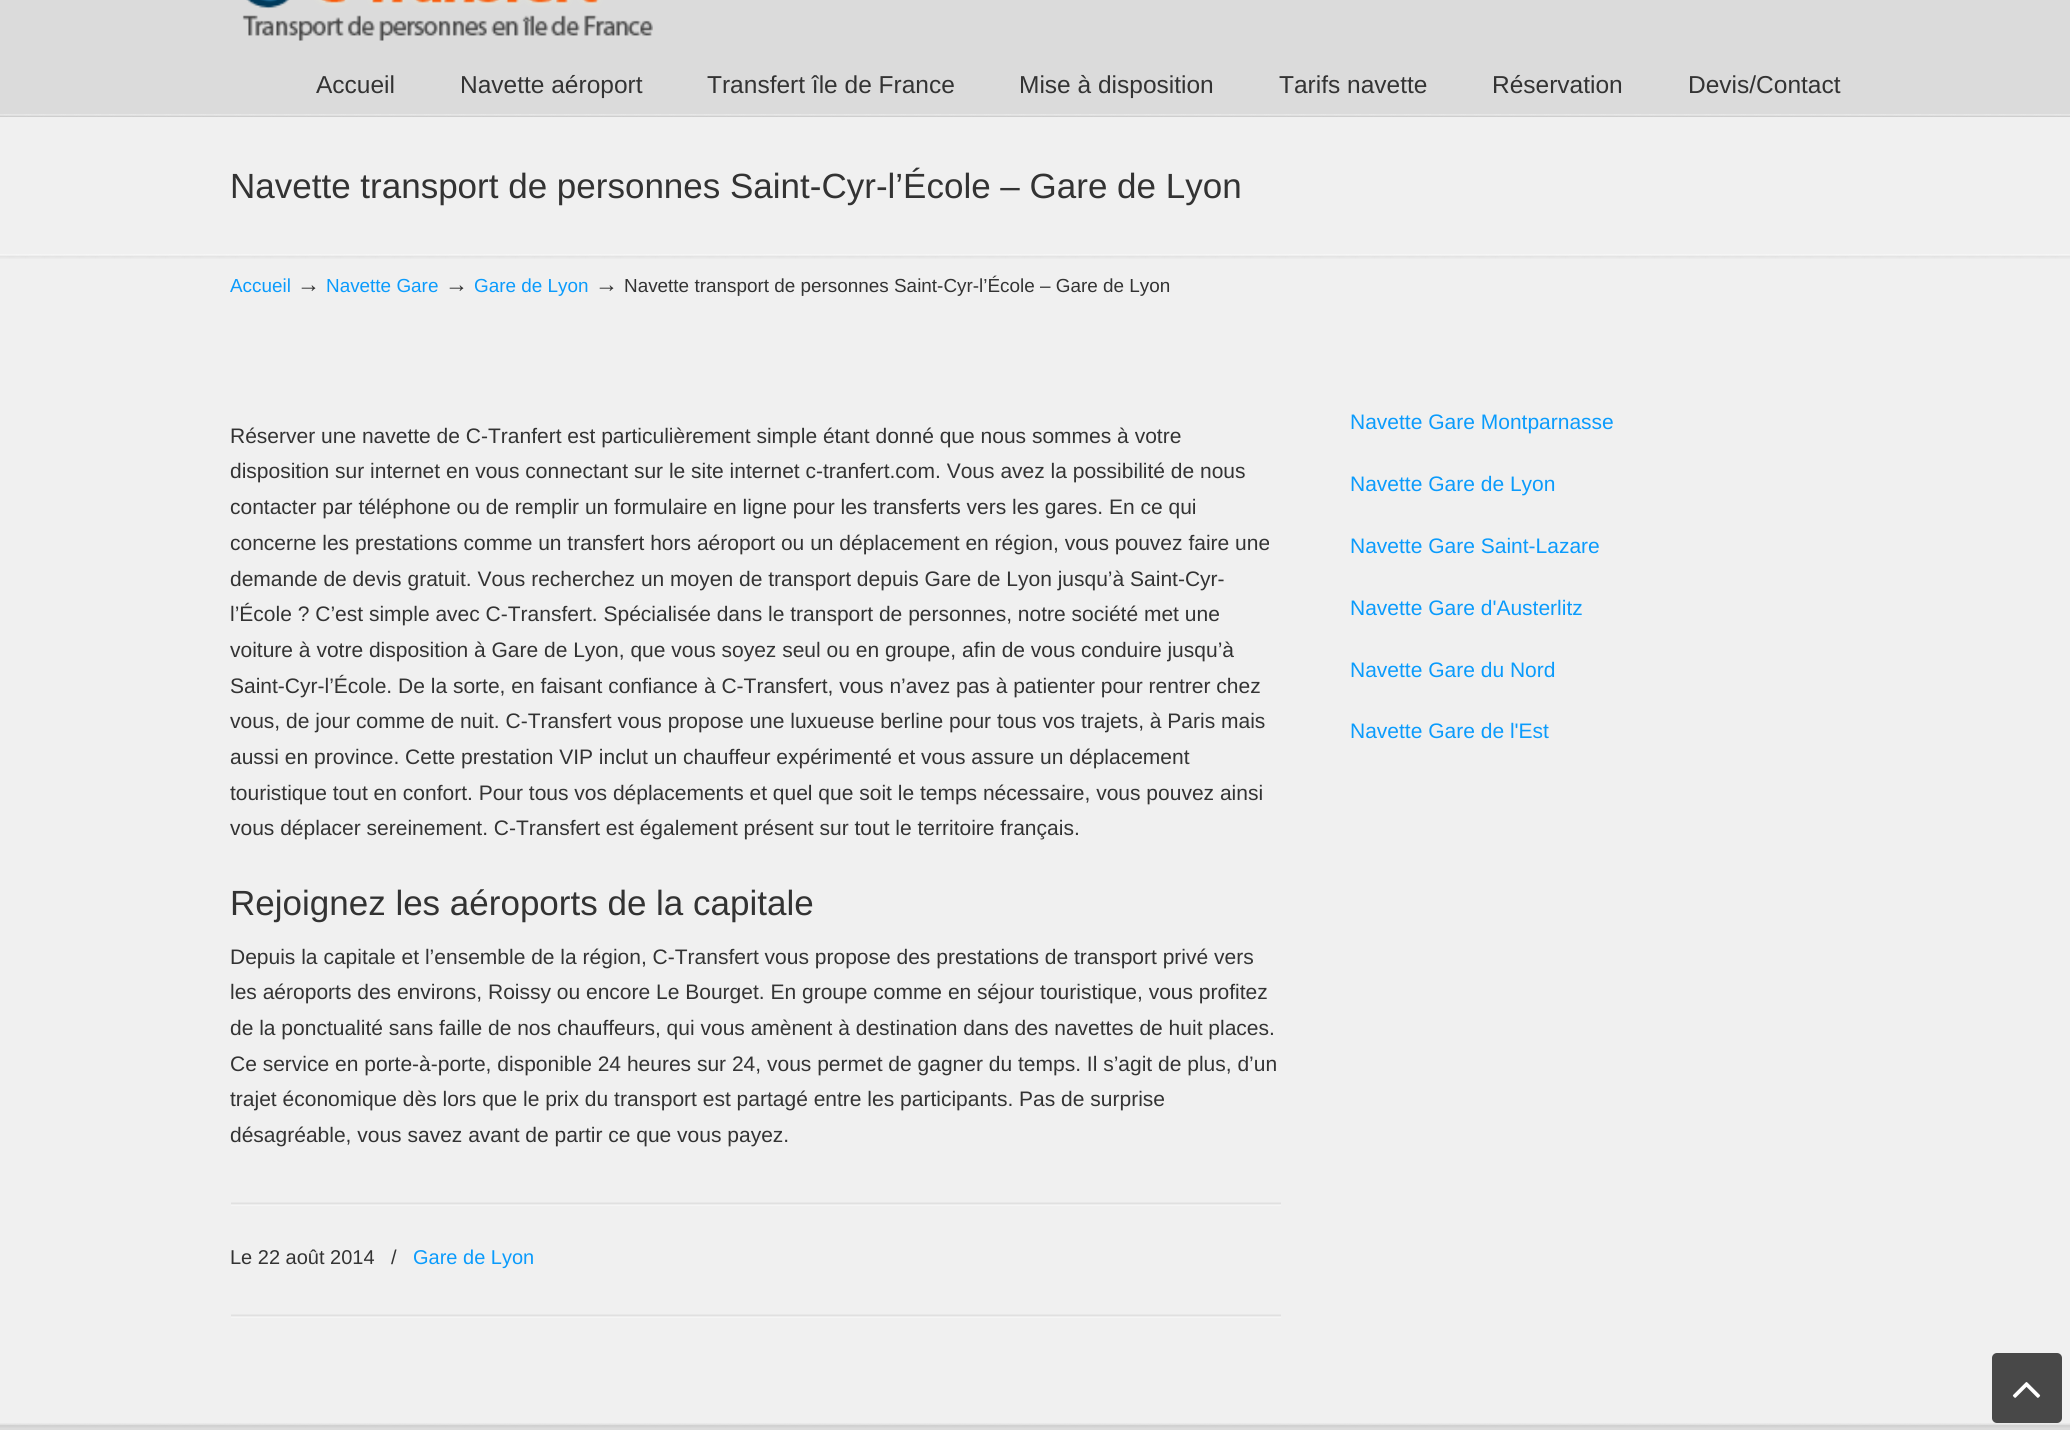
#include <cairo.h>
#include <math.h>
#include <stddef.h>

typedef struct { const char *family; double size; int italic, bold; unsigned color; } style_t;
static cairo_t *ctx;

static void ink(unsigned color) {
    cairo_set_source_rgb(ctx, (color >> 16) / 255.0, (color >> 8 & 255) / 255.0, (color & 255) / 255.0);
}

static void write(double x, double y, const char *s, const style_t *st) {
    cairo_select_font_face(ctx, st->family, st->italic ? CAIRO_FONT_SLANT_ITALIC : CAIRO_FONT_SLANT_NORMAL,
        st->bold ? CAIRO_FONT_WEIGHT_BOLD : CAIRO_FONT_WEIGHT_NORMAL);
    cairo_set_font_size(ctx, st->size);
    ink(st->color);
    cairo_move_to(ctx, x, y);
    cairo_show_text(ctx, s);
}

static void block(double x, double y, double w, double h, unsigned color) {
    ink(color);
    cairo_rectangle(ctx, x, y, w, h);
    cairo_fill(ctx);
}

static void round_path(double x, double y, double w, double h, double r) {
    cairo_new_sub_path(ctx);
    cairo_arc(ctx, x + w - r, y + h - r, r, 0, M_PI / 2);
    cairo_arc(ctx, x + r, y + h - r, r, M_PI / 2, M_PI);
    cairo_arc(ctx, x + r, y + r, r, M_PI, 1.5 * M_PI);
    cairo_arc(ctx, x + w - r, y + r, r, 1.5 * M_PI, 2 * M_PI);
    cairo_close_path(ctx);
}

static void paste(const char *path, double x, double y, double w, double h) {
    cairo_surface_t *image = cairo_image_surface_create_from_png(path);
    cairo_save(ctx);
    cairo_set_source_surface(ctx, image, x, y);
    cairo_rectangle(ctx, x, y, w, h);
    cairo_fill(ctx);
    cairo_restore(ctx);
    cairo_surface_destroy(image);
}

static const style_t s1 = {"Liberation Sans", 24.5, 0, 0, 0x333333};
static const style_t s2 = {"Liberation Sans", 35, 0, 0, 0x333333};
static const style_t s3 = {"Liberation Sans", 18.9, 0, 0, 0x0a9bfc};
static const style_t s4 = {"Liberation Sans", 23, 0, 0, 0x333333};
static const style_t s5 = {"Liberation Sans", 18.9, 0, 0, 0x333333};
static const style_t s6 = {"Liberation Sans", 21, 0, 0, 0x333333};
static const style_t s7 = {"Liberation Sans", 20, 0, 0, 0x333333};
static const style_t s8 = {"Liberation Sans", 20, 0, 0, 0x0a9bfc};
static const style_t s9 = {"Liberation Sans", 21, 0, 0, 0x0a9bfc};

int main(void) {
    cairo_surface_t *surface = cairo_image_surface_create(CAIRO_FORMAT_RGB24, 2070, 1430);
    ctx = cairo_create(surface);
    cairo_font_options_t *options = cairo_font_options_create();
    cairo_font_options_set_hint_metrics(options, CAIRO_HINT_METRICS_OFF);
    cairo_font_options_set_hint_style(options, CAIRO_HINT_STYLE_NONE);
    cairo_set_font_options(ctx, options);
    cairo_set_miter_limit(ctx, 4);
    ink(0xdbdbdb);
    cairo_paint(ctx);
    paste("pic1.png", 242, 0, 411, 41);
    write(316, 93, "Accueil", &s1);
    write(460, 93, "Navette aéroport", &s1);
    write(707, 93, "Transfert île de France", &s1);
    write(1019, 93, "Mise à disposition", &s1);
    write(1279, 93, "Tarifs navette", &s1);
    write(1492, 93, "Réservation", &s1);
    write(1688, 93, "Devis/Contact", &s1);
    paste("pic2.png", 0, 114, 2070, 3);
    block(0, 117, 2070, 1306, 0xf0f0f0);
    write(230, 198, "Navette transport de personnes Saint-Cyr-l’École – Gare de Lyon", &s2);
    paste("pic3.png", 0, 254, 2070, 5);
    write(230, 292, "Accueil", &s3);
    write(297, 292, "→", &s4);
    write(326, 292, "Navette Gare", &s3);
    write(445, 292, "→", &s4);
    write(474, 292, "Gare de Lyon", &s3);
    write(595, 292, "→", &s4);
    write(624, 292, "Navette transport de personnes Saint-Cyr-l’École – Gare de Lyon", &s5);
    write(230, 443, "Réserver une navette de C-Tranfert est particulièrement simple étant donné que nous sommes à votre", &s6);
    write(230, 478, "disposition sur internet en vous connectant sur le site internet c-tranfert.com. Vous avez la possibilité de nous", &s6);
    write(230, 514, "contacter par téléphone ou de remplir un formulaire en ligne pour les transferts vers les gares. En ce qui", &s6);
    write(230, 550, "concerne les prestations comme un transfert hors aéroport ou un déplacement en région, vous pouvez faire une", &s6);
    write(230, 586, "demande de devis gratuit. Vous recherchez un moyen de transport depuis Gare de Lyon jusqu’à Saint-Cyr-", &s6);
    write(230, 621, "l’École ? C’est simple avec C-Transfert. Spécialisée dans le transport de personnes, notre société met une", &s6);
    write(230, 657, "voiture à votre disposition à Gare de Lyon, que vous soyez seul ou en groupe, afin de vous conduire jusqu’à", &s6);
    write(230, 693, "Saint-Cyr-l’École. De la sorte, en faisant confiance à C-Transfert, vous n’avez pas à patienter pour rentrer chez", &s6);
    write(230, 728, "vous, de jour comme de nuit. C-Transfert vous propose une luxueuse berline pour tous vos trajets, à Paris mais", &s6);
    write(230, 764, "aussi en province. Cette prestation VIP inclut un chauffeur expérimenté et vous assure un déplacement", &s6);
    write(230, 800, "touristique tout en confort. Pour tous vos déplacements et quel que soit le temps nécessaire, vous pouvez ainsi", &s6);
    write(230, 835, "vous déplacer sereinement. C-Transfert est également présent sur tout le territoire français.", &s6);
    write(230, 915, "Rejoignez les aéroports de la capitale", &s2);
    write(230, 964, "Depuis la capitale et l’ensemble de la région, C-Transfert vous propose des prestations de transport privé vers", &s6);
    write(230, 999, "les aéroports des environs, Roissy ou encore Le Bourget. En groupe comme en séjour touristique, vous profitez", &s6);
    write(230, 1035, "de la ponctualité sans faille de nos chauffeurs, qui vous amènent à destination dans des navettes de huit places.", &s6);
    write(230, 1071, "Ce service en porte-à-porte, disponible 24 heures sur 24, vous permet de gagner du temps. Il s’agit de plus, d’un", &s6);
    write(230, 1106, "trajet économique dès lors que le prix du transport est partagé entre les participants. Pas de surprise", &s6);
    write(230, 1142, "désagréable, vous savez avant de partir ce que vous payez.", &s6);
    paste("pic4.png", 231, 1202, 1050, 4);
    write(230, 1264, "Le 22 août 2014", &s7);
    write(391, 1264, "/", &s7);
    write(413, 1264, "Gare de Lyon", &s8);
    paste("pic4.png", 231, 1314, 1050, 4);
    write(1350, 429, "Navette Gare Montparnasse", &s9);
    write(1350, 491, "Navette Gare de Lyon", &s9);
    write(1350, 553, "Navette Gare Saint-Lazare", &s9);
    write(1350, 615, "Navette Gare d'Austerlitz", &s9);
    write(1350, 677, "Navette Gare du Nord", &s9);
    write(1350, 738, "Navette Gare de l'Est", &s9);
    ink(0x484848);
    round_path(1992, 1353, 70, 70, 5);
    cairo_fill(ctx);
    paste("pic5.png", 2012, 1382, 29, 16);
    paste("pic6.png", 0, 1423, 2070, 5);
    cairo_surface_write_to_png(surface, "screenshot.png");
    cairo_font_options_destroy(options);
    cairo_destroy(ctx);
    cairo_surface_destroy(surface);
    return 0;
}
